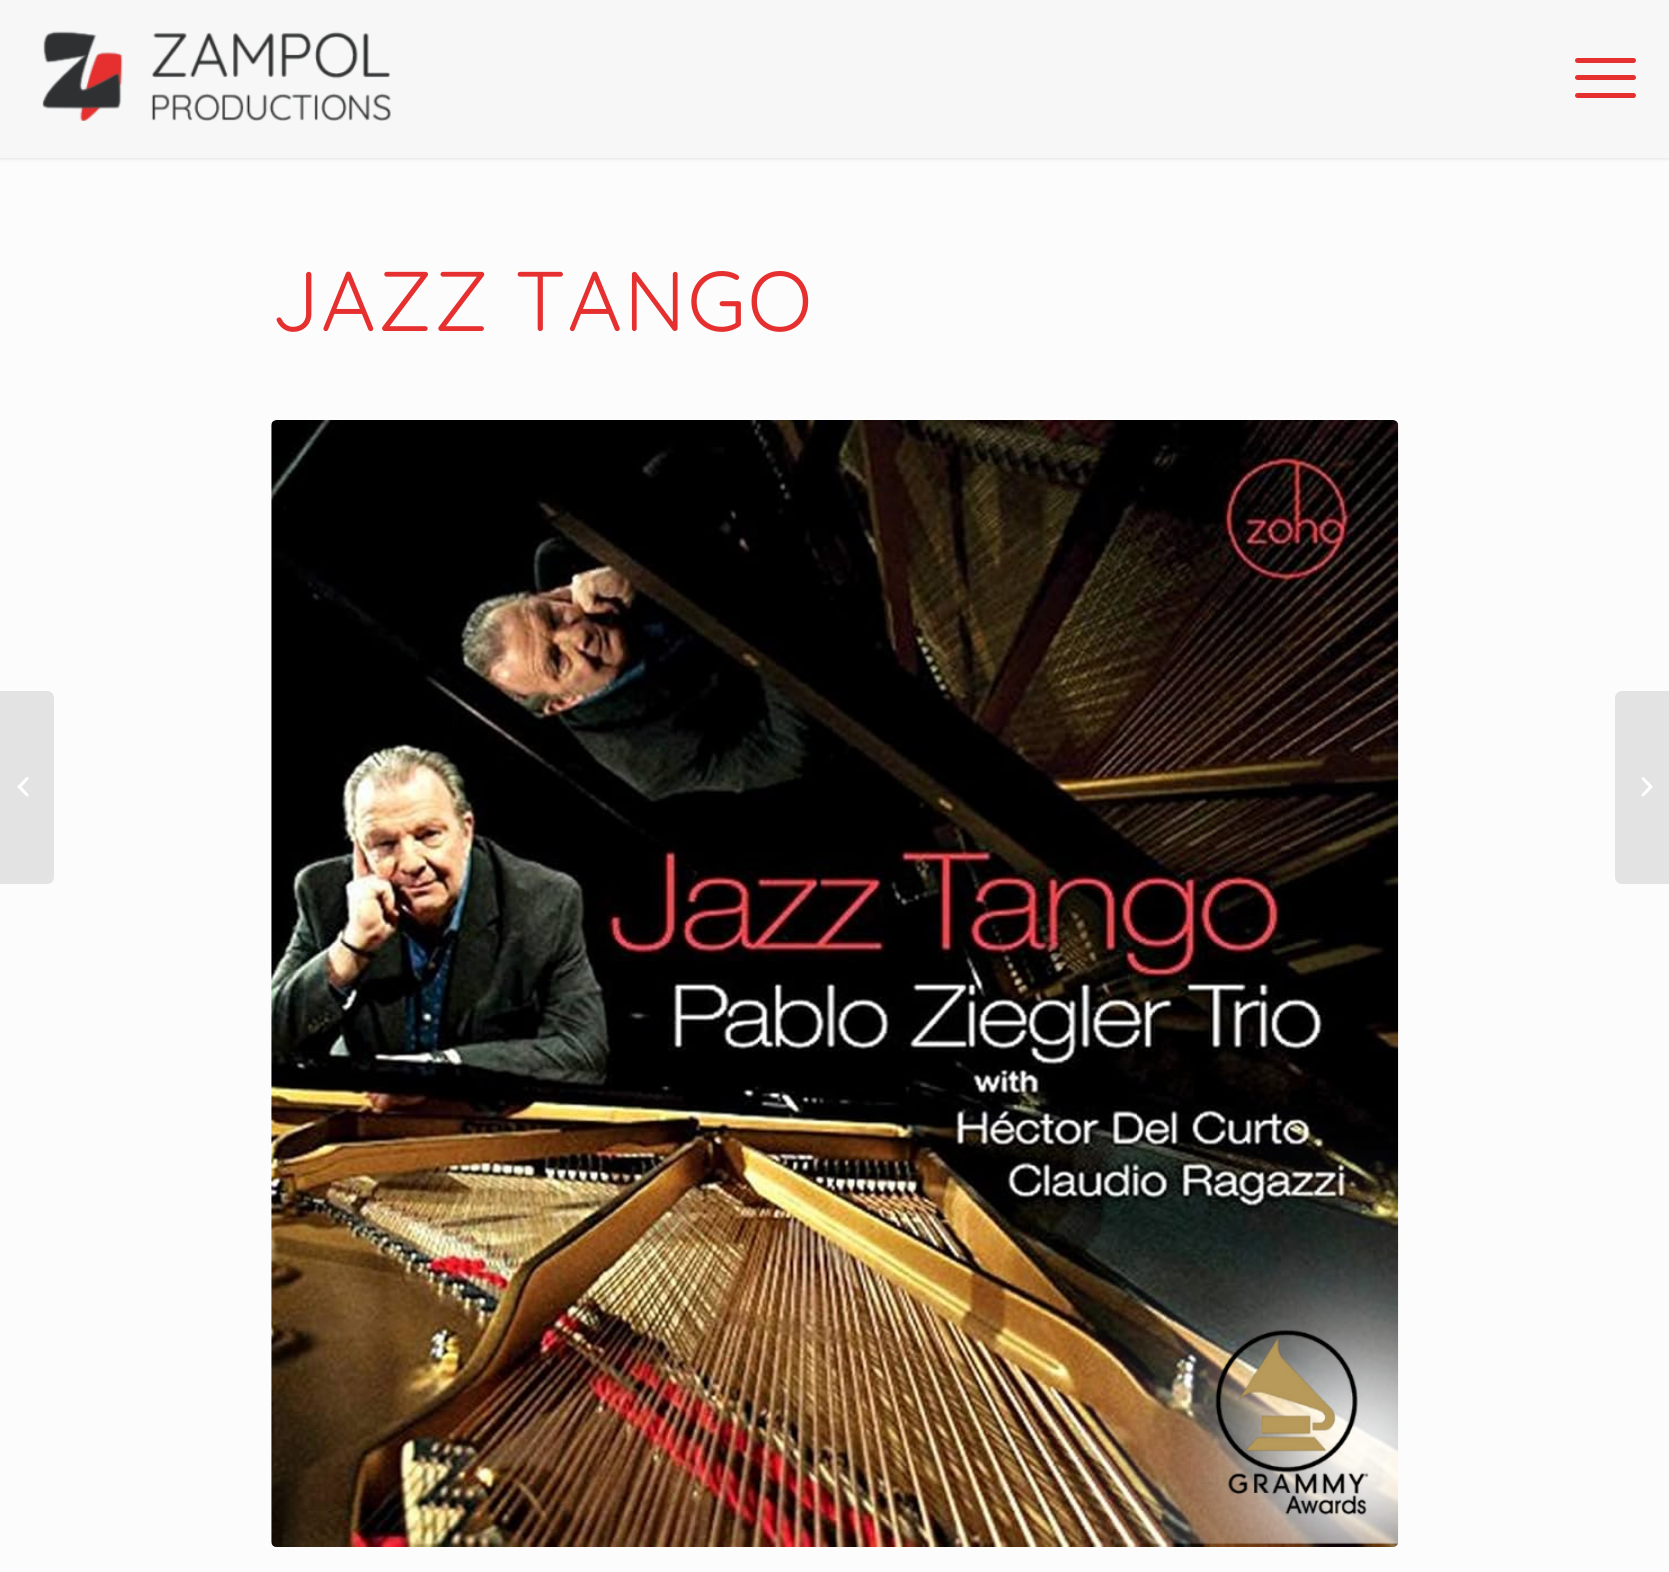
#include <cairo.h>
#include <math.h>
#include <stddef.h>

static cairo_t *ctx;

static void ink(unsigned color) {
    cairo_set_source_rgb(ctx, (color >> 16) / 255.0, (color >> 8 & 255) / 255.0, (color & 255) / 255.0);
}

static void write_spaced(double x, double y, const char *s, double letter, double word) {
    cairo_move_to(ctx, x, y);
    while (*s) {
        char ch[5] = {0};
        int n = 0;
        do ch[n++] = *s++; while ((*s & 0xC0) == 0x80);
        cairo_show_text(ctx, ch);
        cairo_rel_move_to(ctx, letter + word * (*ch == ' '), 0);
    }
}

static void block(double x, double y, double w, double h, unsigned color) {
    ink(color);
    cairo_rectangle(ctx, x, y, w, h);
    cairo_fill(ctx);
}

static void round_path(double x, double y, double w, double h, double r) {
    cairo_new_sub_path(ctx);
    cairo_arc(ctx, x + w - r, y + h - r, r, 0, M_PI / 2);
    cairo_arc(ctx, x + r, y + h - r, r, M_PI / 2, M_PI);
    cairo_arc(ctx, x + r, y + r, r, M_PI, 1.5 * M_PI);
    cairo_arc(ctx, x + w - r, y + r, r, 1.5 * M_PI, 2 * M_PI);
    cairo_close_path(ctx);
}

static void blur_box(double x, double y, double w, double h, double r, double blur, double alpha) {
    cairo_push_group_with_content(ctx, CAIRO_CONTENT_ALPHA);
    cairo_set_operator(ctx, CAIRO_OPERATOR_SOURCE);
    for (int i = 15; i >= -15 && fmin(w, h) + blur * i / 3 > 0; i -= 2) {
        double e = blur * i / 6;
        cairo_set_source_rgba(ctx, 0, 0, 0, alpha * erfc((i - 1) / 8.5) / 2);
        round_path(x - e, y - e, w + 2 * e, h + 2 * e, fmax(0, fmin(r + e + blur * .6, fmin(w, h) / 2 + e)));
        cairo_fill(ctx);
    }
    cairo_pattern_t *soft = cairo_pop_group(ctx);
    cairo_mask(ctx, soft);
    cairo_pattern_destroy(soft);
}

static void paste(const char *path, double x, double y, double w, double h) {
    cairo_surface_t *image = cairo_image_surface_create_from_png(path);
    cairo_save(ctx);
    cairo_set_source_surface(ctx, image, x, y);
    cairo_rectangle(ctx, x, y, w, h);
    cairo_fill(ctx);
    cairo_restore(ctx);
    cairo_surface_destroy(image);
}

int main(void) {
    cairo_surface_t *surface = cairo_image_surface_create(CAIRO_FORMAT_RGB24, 1669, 1572);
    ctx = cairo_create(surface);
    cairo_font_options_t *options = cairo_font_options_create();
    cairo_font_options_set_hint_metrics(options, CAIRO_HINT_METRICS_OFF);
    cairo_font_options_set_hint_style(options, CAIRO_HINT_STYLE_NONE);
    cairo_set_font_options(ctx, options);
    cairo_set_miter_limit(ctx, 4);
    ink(0xfcfcfc);
    cairo_paint(ctx);
    ink(0x000000);
    blur_box(-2, -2, 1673, 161, 0, 2, 0.1);
    block(0, 0, 1669, 158, 0xf7f7f7);
    paste("pic1.png", 42, 31, 349, 90);
    ink(0xe63030);
    round_path(1575, 75, 61, 5, 2.5);
    cairo_fill(ctx);
    round_path(1575, 58, 61, 5, 2.5);
    cairo_fill(ctx);
    round_path(1575, 93, 61, 5, 2.5);
    cairo_fill(ctx);
    cairo_select_font_face(ctx, "Quicksand", CAIRO_FONT_SLANT_NORMAL, CAIRO_FONT_WEIGHT_NORMAL);
    cairo_set_font_size(ctx, 84.5);
    write_spaced(271, 331, "JAZZ TANGO", 1.75, 0);
    paste("pic2.png", 271, 420, 1128, 1127);
    ink(0xe3e3e3);
    cairo_new_path(ctx);
    cairo_move_to(ctx, 0, 691);
    cairo_line_to(ctx, 47, 691);
    cairo_curve_to(ctx, 51, 691, 54, 694, 54, 698);
    cairo_line_to(ctx, 54, 877);
    cairo_curve_to(ctx, 54, 881, 51, 884, 47, 884);
    cairo_line_to(ctx, 0, 884);
    cairo_close_path(ctx);
    cairo_fill(ctx);
    paste("pic3.png", 17, 777, 12, 20);
    cairo_new_path(ctx);
    cairo_move_to(ctx, 1622, 691);
    cairo_line_to(ctx, 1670, 691);
    cairo_line_to(ctx, 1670, 884);
    cairo_line_to(ctx, 1622, 884);
    cairo_curve_to(ctx, 1618, 884, 1615, 881, 1615, 877);
    cairo_line_to(ctx, 1615, 698);
    cairo_curve_to(ctx, 1615, 694, 1618, 691, 1622, 691);
    cairo_close_path(ctx);
    cairo_fill(ctx);
    paste("pic4.png", 1641, 777, 12, 20);
    cairo_surface_write_to_png(surface, "screenshot.png");
    cairo_font_options_destroy(options);
    cairo_destroy(ctx);
    cairo_surface_destroy(surface);
    return 0;
}
